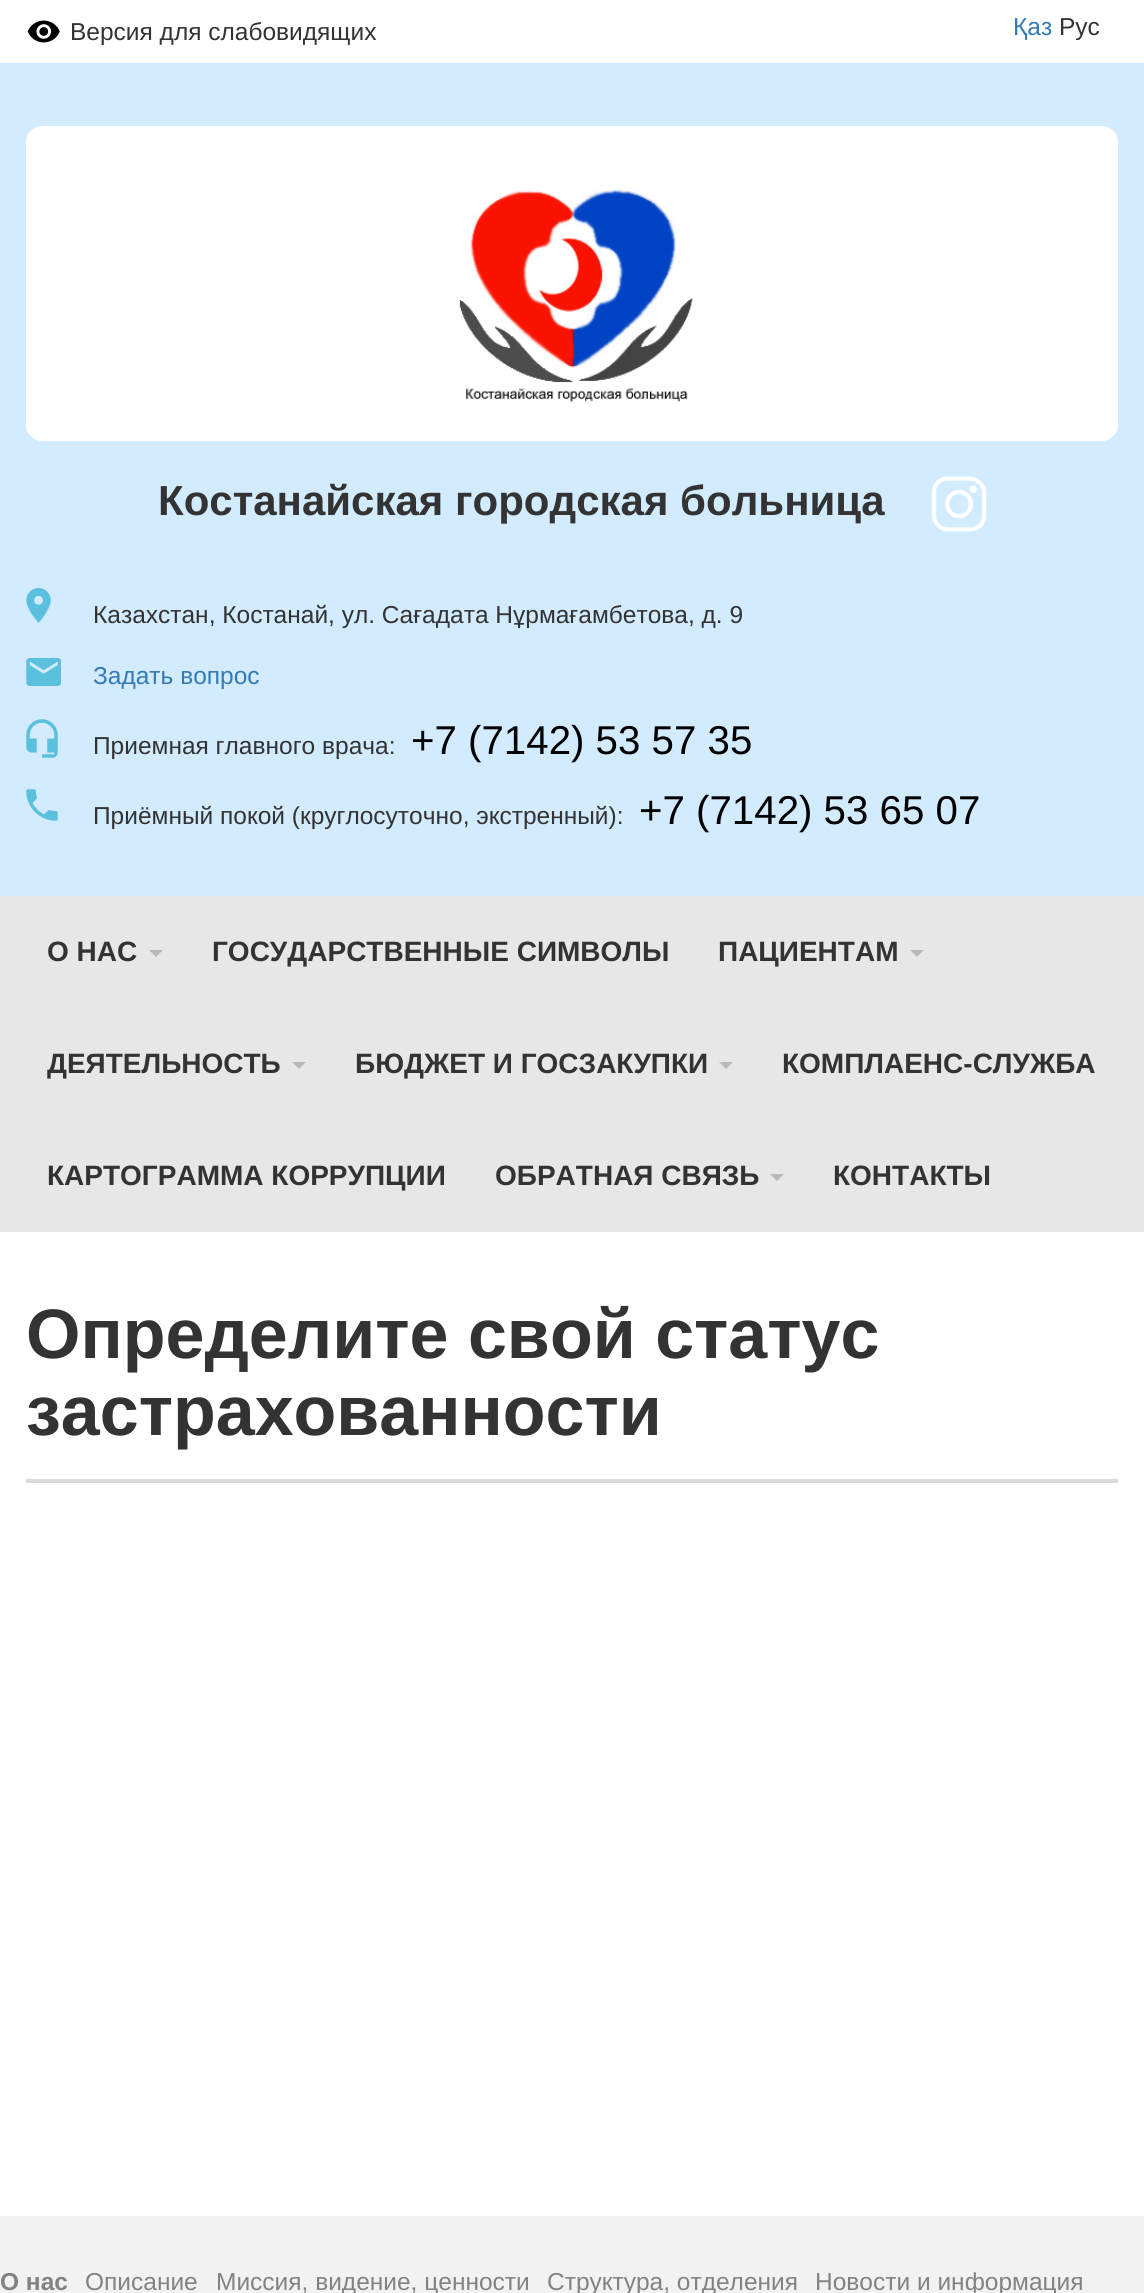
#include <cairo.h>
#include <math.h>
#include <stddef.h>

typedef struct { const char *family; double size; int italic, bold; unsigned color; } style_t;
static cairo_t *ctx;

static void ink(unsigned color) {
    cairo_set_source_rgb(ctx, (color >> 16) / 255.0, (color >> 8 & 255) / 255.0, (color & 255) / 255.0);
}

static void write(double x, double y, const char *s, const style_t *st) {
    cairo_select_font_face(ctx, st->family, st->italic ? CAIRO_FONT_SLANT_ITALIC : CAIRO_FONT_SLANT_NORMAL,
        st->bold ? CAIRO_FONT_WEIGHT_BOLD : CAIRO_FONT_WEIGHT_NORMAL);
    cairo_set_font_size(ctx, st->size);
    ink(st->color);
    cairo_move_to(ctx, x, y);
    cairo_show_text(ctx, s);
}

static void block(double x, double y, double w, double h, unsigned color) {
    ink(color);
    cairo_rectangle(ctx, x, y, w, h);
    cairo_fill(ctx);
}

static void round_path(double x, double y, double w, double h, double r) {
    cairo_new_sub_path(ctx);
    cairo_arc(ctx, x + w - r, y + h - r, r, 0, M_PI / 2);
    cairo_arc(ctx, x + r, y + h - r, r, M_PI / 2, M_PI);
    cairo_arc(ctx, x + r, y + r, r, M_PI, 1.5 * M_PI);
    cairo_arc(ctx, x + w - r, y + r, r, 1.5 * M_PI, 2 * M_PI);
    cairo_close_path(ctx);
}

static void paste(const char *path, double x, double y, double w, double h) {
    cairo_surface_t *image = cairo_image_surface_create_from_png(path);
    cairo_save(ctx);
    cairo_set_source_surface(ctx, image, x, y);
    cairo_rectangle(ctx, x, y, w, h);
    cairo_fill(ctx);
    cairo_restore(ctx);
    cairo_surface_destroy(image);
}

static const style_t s1 = {"Liberation Sans", 24.5, 0, 0, 0x333333};
static const style_t s2 = {"Liberation Sans", 24.5, 0, 0, 0x337ab7};
static const style_t s3 = {"Liberation Sans", 42, 0, 1, 0x333333};
static const style_t s4 = {"Liberation Sans", 40.25, 0, 0, 0x000000};
static const style_t s5 = {"Liberation Sans", 28, 0, 1, 0x333333};
static const style_t s6 = {"Liberation Sans", 70, 0, 1, 0x333333};
static const style_t s7 = {"Liberation Sans", 24.5, 0, 1, 0x828282};
static const style_t s8 = {"Liberation Sans", 24.5, 0, 0, 0x828282};

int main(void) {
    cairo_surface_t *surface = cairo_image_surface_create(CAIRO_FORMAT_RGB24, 1144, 2293);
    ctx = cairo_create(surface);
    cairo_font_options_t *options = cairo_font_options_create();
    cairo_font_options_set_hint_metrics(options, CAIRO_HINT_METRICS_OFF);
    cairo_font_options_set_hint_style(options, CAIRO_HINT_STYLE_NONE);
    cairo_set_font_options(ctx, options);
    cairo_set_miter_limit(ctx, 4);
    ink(0xffffff);
    cairo_paint(ctx);
    paste("pic1.png", 27, 20, 33, 23);
    write(70, 40, "Версия для слабовидящих", &s1);
    write(1013, 35, "Қаз", &s2);
    write(1059, 35, "Рус", &s1);
    block(0, 63, 1144, 833, 0xd2ebff);
    ink(0xffffff);
    round_path(26, 126, 1092, 315, 16);
    cairo_fill(ctx);
    paste("pic2.png", 459, 189, 234, 214);
    write(158, 515, "Костанайская городская больница", &s3);
    paste("pic3.png", 931, 476, 56, 56);
    paste("pic4.png", 26, 588, 25, 35);
    write(93, 623, "Казахстан, Костанай, ул. Сағадата Нұрмағамбетова, д. 9", &s1);
    paste("pic5.png", 26, 658, 35, 28);
    write(93, 684, "Задать вопрос", &s2);
    paste("pic6.png", 26, 719, 32, 39);
    write(93, 754, "Приемная главного врача:", &s1);
    write(411, 754, "+7 (7142) 53 57 35", &s4);
    paste("pic7.png", 26, 789, 32, 32);
    write(93, 824, "Приёмный покой (круглосуточно, экстренный):", &s1);
    write(639, 824, "+7 (7142) 53 65 07", &s4);
    block(0, 896, 1144, 336, 0xe7e7e7);
    write(47, 961, "О НАС", &s5);
    ink(0xb8b8b8);
    cairo_new_path(ctx);
    cairo_move_to(ctx, 149, 950);
    cairo_line_to(ctx, 163, 950);
    cairo_line_to(ctx, 156, 957);
    cairo_close_path(ctx);
    cairo_fill(ctx);
    write(212, 961, "ГОСУДАРСТВЕННЫЕ СИМВОЛЫ", &s5);
    write(718, 961, "ПАЦИЕНТАМ", &s5);
    ink(0xb8b8b8);
    cairo_new_path(ctx);
    cairo_move_to(ctx, 910, 950);
    cairo_line_to(ctx, 924, 950);
    cairo_line_to(ctx, 917, 957);
    cairo_close_path(ctx);
    cairo_fill(ctx);
    write(47, 1073, "ДЕЯТЕЛЬНОСТЬ", &s5);
    ink(0xb8b8b8);
    cairo_new_path(ctx);
    cairo_move_to(ctx, 292, 1062);
    cairo_line_to(ctx, 306, 1062);
    cairo_line_to(ctx, 299, 1069);
    cairo_close_path(ctx);
    cairo_fill(ctx);
    write(355, 1073, "БЮДЖЕТ И ГОСЗАКУПКИ", &s5);
    ink(0xb8b8b8);
    cairo_new_path(ctx);
    cairo_move_to(ctx, 719, 1062);
    cairo_line_to(ctx, 733, 1062);
    cairo_line_to(ctx, 726, 1069);
    cairo_close_path(ctx);
    cairo_fill(ctx);
    write(782, 1073, "КОМПЛАЕНС-СЛУЖБА", &s5);
    write(47, 1185, "КАРТОГРАММА КОРРУПЦИИ", &s5);
    write(495, 1185, "ОБРАТНАЯ СВЯЗЬ", &s5);
    ink(0xb8b8b8);
    cairo_new_path(ctx);
    cairo_move_to(ctx, 770, 1174);
    cairo_line_to(ctx, 784, 1174);
    cairo_line_to(ctx, 777, 1181);
    cairo_close_path(ctx);
    cairo_fill(ctx);
    write(833, 1185, "КОНТАКТЫ", &s5);
    block(26, 1479, 1092, 4, 0xdadada);
    write(26, 1358, "Определите свой статус", &s6);
    write(26, 1435, "застрахованности", &s6);
    block(0, 2216, 1144, 77, 0xf2f2f2);
    write(0, 2290, "О нас", &s7);
    write(85, 2290, "Описание", &s8);
    write(216, 2290, "Миссия, видение, ценности", &s8);
    write(547, 2290, "Структура, отделения", &s8);
    write(815, 2290, "Новости и информация", &s8);
    cairo_surface_write_to_png(surface, "screenshot.png");
    cairo_font_options_destroy(options);
    cairo_destroy(ctx);
    cairo_surface_destroy(surface);
    return 0;
}
